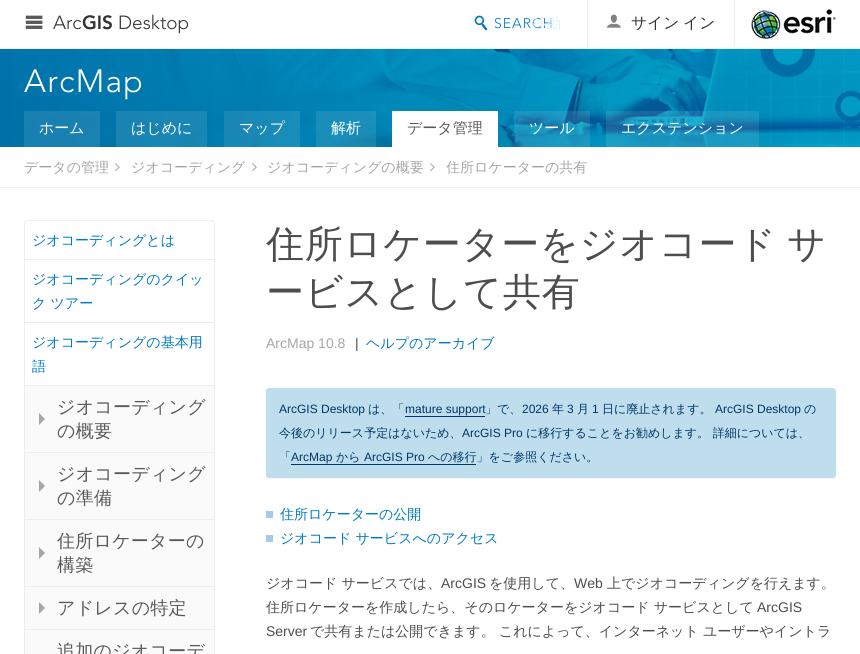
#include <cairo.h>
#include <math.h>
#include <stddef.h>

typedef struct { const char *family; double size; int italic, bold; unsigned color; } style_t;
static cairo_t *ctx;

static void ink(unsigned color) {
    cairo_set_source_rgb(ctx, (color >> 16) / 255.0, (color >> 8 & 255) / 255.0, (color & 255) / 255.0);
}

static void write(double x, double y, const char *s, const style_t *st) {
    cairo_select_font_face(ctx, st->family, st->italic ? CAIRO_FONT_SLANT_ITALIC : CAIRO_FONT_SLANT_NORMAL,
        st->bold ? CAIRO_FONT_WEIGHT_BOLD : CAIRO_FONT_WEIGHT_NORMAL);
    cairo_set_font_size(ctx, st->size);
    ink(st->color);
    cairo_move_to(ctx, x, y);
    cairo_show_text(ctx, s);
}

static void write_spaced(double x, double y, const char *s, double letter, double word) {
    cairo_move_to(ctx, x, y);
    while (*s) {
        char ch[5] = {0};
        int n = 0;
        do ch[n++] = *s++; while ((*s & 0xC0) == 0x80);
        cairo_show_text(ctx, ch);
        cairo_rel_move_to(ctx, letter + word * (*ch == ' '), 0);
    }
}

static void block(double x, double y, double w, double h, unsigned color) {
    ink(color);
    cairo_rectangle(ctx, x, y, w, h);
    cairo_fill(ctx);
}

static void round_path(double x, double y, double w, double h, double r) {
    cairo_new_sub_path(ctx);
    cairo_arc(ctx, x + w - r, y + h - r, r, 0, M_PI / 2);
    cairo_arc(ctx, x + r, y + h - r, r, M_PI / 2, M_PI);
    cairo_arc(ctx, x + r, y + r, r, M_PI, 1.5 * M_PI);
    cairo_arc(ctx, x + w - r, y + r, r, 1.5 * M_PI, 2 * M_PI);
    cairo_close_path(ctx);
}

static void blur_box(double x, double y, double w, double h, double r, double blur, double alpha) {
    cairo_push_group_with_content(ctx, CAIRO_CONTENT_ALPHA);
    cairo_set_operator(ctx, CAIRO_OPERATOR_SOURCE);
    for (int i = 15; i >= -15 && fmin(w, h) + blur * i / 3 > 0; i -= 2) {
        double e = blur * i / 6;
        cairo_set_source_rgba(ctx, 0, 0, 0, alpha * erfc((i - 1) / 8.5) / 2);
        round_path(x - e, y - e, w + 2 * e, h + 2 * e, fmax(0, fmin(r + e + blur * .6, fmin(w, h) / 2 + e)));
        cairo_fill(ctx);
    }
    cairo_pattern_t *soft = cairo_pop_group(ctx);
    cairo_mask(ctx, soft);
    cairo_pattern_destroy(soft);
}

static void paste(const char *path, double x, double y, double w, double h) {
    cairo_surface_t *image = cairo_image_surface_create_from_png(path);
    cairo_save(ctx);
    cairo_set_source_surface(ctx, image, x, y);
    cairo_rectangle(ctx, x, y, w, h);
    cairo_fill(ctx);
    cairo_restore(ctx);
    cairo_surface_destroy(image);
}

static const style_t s1 = {"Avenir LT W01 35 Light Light", 19, 0, 0, 0x333333};
static const style_t s2 = {"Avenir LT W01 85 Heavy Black", 19, 0, 0, 0x333333};
static const style_t s3 = {"WenQuanYi Zen Hei Medium", 15, 0, 0, 0xffffff};
static const style_t s4 = {"WenQuanYi Zen Hei Medium", 15, 0, 0, 0x595959};
static const style_t s5 = {"WenQuanYi Zen Hei Medium", 14, 0, 0, 0xa6a6a6};
static const style_t s6 = {"WenQuanYi Zen Hei Medium", 14, 0, 0, 0x007ac2};
static const style_t s7 = {"Liberation Sans", 14, 0, 0, 0xa6a6a6};
static const style_t s8 = {"Liberation Sans", 14, 0, 0, 0x4d4d4d};
static const style_t s9 = {"Liberation Sans", 12, 0, 0, 0x003768};
static const style_t s10 = {"WenQuanYi Zen Hei Medium", 12, 0, 0, 0x003768};
static const style_t s11 = {"WenQuanYi Zen Hei Medium", 14, 0, 0, 0x4d4d4d};

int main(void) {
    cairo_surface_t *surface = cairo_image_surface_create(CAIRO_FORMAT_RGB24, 860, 654);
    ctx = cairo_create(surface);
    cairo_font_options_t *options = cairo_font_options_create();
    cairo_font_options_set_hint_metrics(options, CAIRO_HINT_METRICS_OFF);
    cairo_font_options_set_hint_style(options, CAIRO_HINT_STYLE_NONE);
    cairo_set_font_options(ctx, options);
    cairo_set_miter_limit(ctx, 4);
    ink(0xffffff);
    cairo_paint(ctx);
    block(0, 48, 860, 1, 0xededed);
    paste("pic1.png", 25, 15, 18, 14);
    write(53, 29, "Arc", &s1);
    write(82, 29, "GIS", &s2);
    write(118, 29, "Desktop", &s1);
    paste("pic2.png", 474, 15, 14, 16);
    cairo_set_font_size(ctx, 14);
    ink(0x007ac2);
    write_spaced(494, 28, "SEARCH", 1, 0);
    cairo_select_font_face(ctx, "WenQuanYi Zen Hei Medium", CAIRO_FONT_SLANT_NORMAL, CAIRO_FONT_WEIGHT_NORMAL);
    ink(0xe2f0f8);
    write_spaced(532, 28, "移動", 1, 0);
    block(734, 0, 1, 47, 0xededed);
    block(587, 0, 1, 47, 0xededed);
    paste("pic3.png", 607, 14, 14, 14);
    cairo_set_font_size(ctx, 15.75);
    ink(0x333333);
    write_spaced(631, 28, "サイン イン", 0, -1);
    paste("pic4.png", 751, 8, 85, 33);
    paste("pic5.png", 0, 49, 860, 98);
    cairo_select_font_face(ctx, "Avenir LT W01 35 Light Light", CAIRO_FONT_SLANT_NORMAL, CAIRO_FONT_WEIGHT_NORMAL);
    cairo_set_font_size(ctx, 32);
    ink(0xffffff);
    write_spaced(24, 92, "ArcMap", 1.25, 0);
    cairo_set_source_rgba(ctx, 1, 1, 1, 0.1);
    cairo_rectangle(ctx, 24, 111, 76, 36);
    cairo_fill(ctx);
    write(39, 133, "ホーム", &s3);
    cairo_set_source_rgba(ctx, 1, 1, 1, 0.1);
    cairo_rectangle(ctx, 116, 111, 91, 36);
    cairo_fill(ctx);
    write(131, 133, "はじめに", &s3);
    cairo_set_source_rgba(ctx, 1, 1, 1, 0.1);
    cairo_rectangle(ctx, 224, 111, 76, 36);
    cairo_fill(ctx);
    write(239, 133, "マップ", &s3);
    cairo_set_source_rgba(ctx, 1, 1, 1, 0.1);
    cairo_rectangle(ctx, 316, 111, 60, 36);
    cairo_fill(ctx);
    write(331, 133, "解析", &s3);
    block(392, 111, 106, 36, 0xffffff);
    write(407, 133, "データ管理", &s4);
    cairo_set_source_rgba(ctx, 1, 1, 1, 0.1);
    cairo_rectangle(ctx, 514, 111, 76, 36);
    cairo_fill(ctx);
    write(529, 133, "ツール", &s3);
    cairo_set_source_rgba(ctx, 1, 1, 1, 0.1);
    cairo_rectangle(ctx, 606, 111, 153, 36);
    cairo_fill(ctx);
    write(621, 133, "エクステンション", &s3);
    block(0, 187, 860, 1, 0xededed);
    write(24, 172, "データの管理", &s5);
    paste("pic6.png", 115, 163, 5, 9);
    write(131, 172, "ジオコーディング", &s5);
    paste("pic6.png", 252, 163, 5, 9);
    write(267, 172, "ジオコーディングの概要", &s5);
    paste("pic6.png", 430, 163, 5, 9);
    write(446, 172, "住所ロケーターの共有", &s5);
    round_path(24.5, 220.5, 190, 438, 3.5);
    ink(0xededed);
    cairo_set_line_width(ctx, 1);
    cairo_stroke(ctx);
    block(25, 259, 189, 1, 0xededed);
    write(32, 245, "ジオコーディングとは", &s6);
    block(25, 322, 189, 1, 0xededed);
    write(32, 284, "ジオコーディングのクイッ", &s6);
    write(32, 308, "ク ツアー", &s6);
    block(25, 385, 189, 1, 0xededed);
    write(32, 347, "ジオコーディングの基本用", &s6);
    write(32, 371, "語", &s6);
    block(25, 386, 189, 66, 0xfafafa);
    block(25, 452, 189, 1, 0xededed);
    cairo_set_font_size(ctx, 18);
    ink(0x595959);
    write_spaced(57, 413, "ジオコーディング", 0.25, 0);
    ink(0xa6a6a6);
    cairo_new_path(ctx);
    cairo_move_to(ctx, 39, 425);
    cairo_line_to(ctx, 39, 413);
    cairo_line_to(ctx, 45, 419);
    cairo_close_path(ctx);
    cairo_fill(ctx);
    ink(0x595959);
    write_spaced(57, 437, "の概要", 0.25, 0);
    block(25, 453, 189, 66, 0xfafafa);
    block(25, 519, 189, 1, 0xededed);
    ink(0x595959);
    write_spaced(57, 480, "ジオコーディング", 0.25, 0);
    ink(0xa6a6a6);
    cairo_new_path(ctx);
    cairo_move_to(ctx, 39, 492);
    cairo_line_to(ctx, 39, 480);
    cairo_line_to(ctx, 45, 486);
    cairo_close_path(ctx);
    cairo_fill(ctx);
    ink(0x595959);
    write_spaced(57, 504, "の準備", 0.25, 0);
    block(25, 520, 189, 66, 0xfafafa);
    block(25, 586, 189, 1, 0xededed);
    ink(0x595959);
    write_spaced(57, 547, "住所ロケーターの", 0.25, 0);
    ink(0xa6a6a6);
    cairo_new_path(ctx);
    cairo_move_to(ctx, 39, 559);
    cairo_line_to(ctx, 39, 547);
    cairo_line_to(ctx, 45, 553);
    cairo_close_path(ctx);
    cairo_fill(ctx);
    ink(0x595959);
    write_spaced(57, 571, "構築", 0.25, 0);
    block(25, 587, 189, 42, 0xfafafa);
    block(25, 629, 189, 1, 0xededed);
    ink(0xa6a6a6);
    cairo_new_path(ctx);
    cairo_move_to(ctx, 39, 614);
    cairo_line_to(ctx, 39, 602);
    cairo_line_to(ctx, 45, 608);
    cairo_close_path(ctx);
    cairo_fill(ctx);
    ink(0x595959);
    write_spaced(57, 614, "アドレスの特定", 0.25, 0);
    block(25, 630, 189, 24, 0xfafafa);
    ink(0x595959);
    write_spaced(57, 657, "追加のジオコーデ", 0.25, 0);
    cairo_set_font_size(ctx, 38);
    ink(0x4d4d4d);
    write_spaced(266, 257, "住所ロケーターをジオコード サ", 0.75, -2);
    write_spaced(266, 305, "ービスとして共有", 0.75, 0);
    write(266, 348, "ArcMap 10.8", &s7);
    write(355, 348, "|", &s8);
    write(366, 348, "ヘルプのアーカイブ", &s6);
    ink(0x000000);
    blur_box(266, 389, 570, 90, 3, 1, 0.05);
    ink(0xbedded);
    round_path(266, 388, 570, 90, 3);
    cairo_fill(ctx);
    cairo_set_source_rgba(ctx, 1, 1, 1, 0.1);
    cairo_new_path(ctx);
    cairo_move_to(ctx, 269, 389);
    cairo_line_to(ctx, 833, 389);
    cairo_curve_to(ctx, 835, 389, 836, 390, 836, 392);
    cairo_line_to(ctx, 836, 391);
    cairo_curve_to(ctx, 836, 389, 835, 388, 833, 388);
    cairo_line_to(ctx, 269, 388);
    cairo_curve_to(ctx, 267, 388, 266, 389, 266, 391);
    cairo_line_to(ctx, 266, 392);
    cairo_curve_to(ctx, 266, 390, 267, 389, 269, 389);
    cairo_close_path(ctx);
    cairo_fill(ctx);
    write(279, 413, "ArcGIS Desktop", &s9);
    write(368, 413, "は、「", &s10);
    write(405, 413, "mature support", &s9);
    block(405, 416, 80, 1, 0x003768);
    write(485, 413, "」で、", &s10);
    write(522, 413, "2026", &s9);
    write(552, 413, "年", &s10);
    write(567, 413, "3", &s9);
    write(577, 413, "月", &s10);
    write(592, 413, "1", &s9);
    write(602, 413, "日に廃止されます。", &s10);
    write(715, 413, "ArcGIS Desktop", &s9);
    write(804, 413, "の", &s10);
    write(279, 437, "今後のリリース予定はないため、", &s10);
    write(462, 437, "ArcGIS Pro", &s9);
    write(526, 437, "に移行することをお勧めします。 詳細については、", &s10);
    write(279, 461, "「", &s10);
    write(291, 461, "ArcMap", &s9);
    block(291, 464, 185, 1, 0x003768);
    write(336, 461, "から", &s10);
    write(364, 461, "ArcGIS Pro", &s9);
    write(428, 461, "への移行」をご参照ください。", &s10);
    block(266, 511, 7, 7, 0xa8c9e3);
    write(280, 519, "住所ロケーターの公開", &s6);
    block(266, 535, 7, 7, 0xa8c9e3);
    write(280, 543, "ジオコード サービスへのアクセス", &s6);
    write(266, 588, "ジオコード サービスでは、", &s11);
    write(441, 588, "ArcGIS", &s8);
    write(489, 588, "を使用して、", &s11);
    write(574, 588, "Web", &s8);
    write(607, 588, "上でジオコーディングを行えます。", &s11);
    write(266, 612, "住所ロケーターを作成したら、そのロケーターをジオコード サービスとして", &s11);
    write(757, 612, "ArcGIS", &s8);
    write(266, 636, "Server", &s8);
    write(310, 636, "で共有または公開できます。 これによって、インターネット ユーザーやイントラ", &s11);
    cairo_surface_write_to_png(surface, "screenshot.png");
    cairo_font_options_destroy(options);
    cairo_destroy(ctx);
    cairo_surface_destroy(surface);
    return 0;
}
